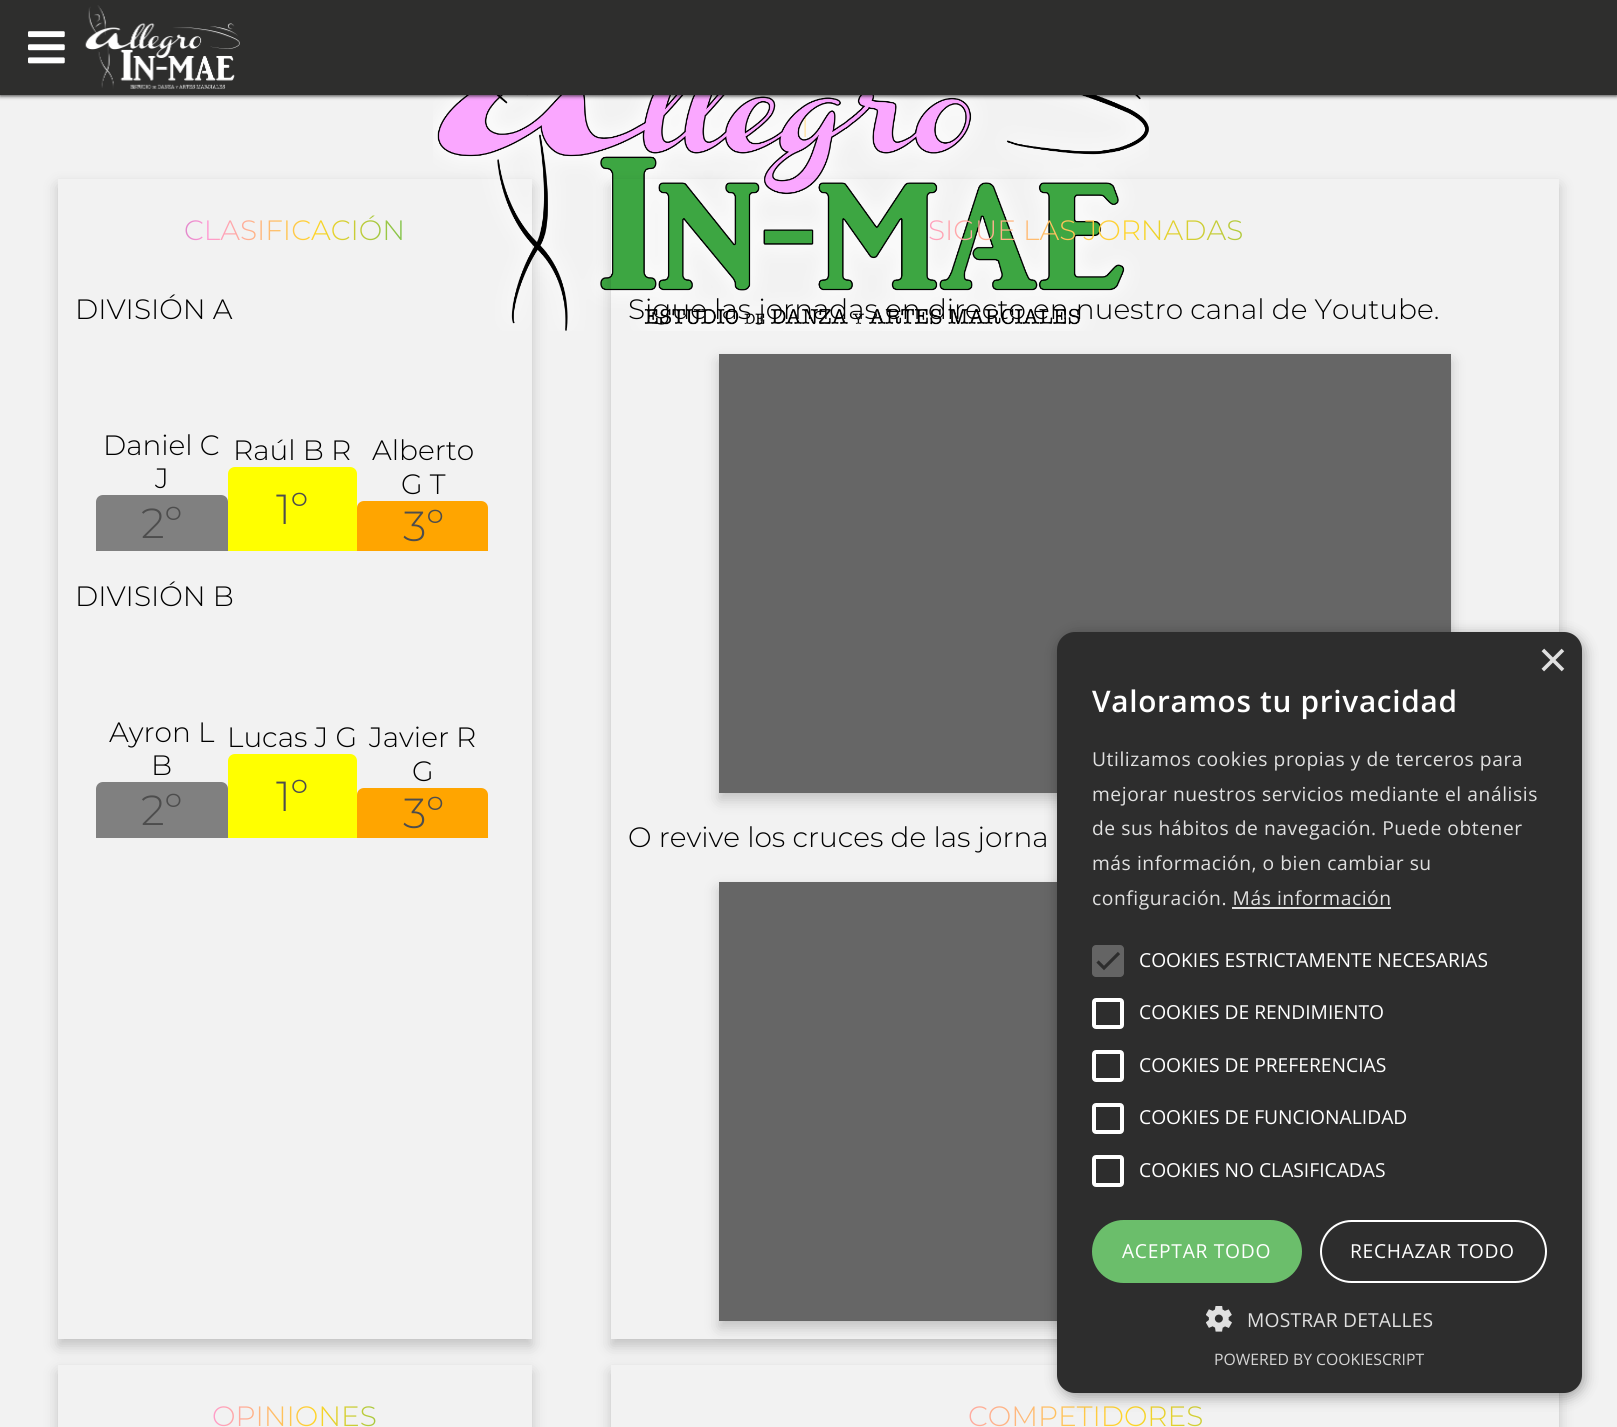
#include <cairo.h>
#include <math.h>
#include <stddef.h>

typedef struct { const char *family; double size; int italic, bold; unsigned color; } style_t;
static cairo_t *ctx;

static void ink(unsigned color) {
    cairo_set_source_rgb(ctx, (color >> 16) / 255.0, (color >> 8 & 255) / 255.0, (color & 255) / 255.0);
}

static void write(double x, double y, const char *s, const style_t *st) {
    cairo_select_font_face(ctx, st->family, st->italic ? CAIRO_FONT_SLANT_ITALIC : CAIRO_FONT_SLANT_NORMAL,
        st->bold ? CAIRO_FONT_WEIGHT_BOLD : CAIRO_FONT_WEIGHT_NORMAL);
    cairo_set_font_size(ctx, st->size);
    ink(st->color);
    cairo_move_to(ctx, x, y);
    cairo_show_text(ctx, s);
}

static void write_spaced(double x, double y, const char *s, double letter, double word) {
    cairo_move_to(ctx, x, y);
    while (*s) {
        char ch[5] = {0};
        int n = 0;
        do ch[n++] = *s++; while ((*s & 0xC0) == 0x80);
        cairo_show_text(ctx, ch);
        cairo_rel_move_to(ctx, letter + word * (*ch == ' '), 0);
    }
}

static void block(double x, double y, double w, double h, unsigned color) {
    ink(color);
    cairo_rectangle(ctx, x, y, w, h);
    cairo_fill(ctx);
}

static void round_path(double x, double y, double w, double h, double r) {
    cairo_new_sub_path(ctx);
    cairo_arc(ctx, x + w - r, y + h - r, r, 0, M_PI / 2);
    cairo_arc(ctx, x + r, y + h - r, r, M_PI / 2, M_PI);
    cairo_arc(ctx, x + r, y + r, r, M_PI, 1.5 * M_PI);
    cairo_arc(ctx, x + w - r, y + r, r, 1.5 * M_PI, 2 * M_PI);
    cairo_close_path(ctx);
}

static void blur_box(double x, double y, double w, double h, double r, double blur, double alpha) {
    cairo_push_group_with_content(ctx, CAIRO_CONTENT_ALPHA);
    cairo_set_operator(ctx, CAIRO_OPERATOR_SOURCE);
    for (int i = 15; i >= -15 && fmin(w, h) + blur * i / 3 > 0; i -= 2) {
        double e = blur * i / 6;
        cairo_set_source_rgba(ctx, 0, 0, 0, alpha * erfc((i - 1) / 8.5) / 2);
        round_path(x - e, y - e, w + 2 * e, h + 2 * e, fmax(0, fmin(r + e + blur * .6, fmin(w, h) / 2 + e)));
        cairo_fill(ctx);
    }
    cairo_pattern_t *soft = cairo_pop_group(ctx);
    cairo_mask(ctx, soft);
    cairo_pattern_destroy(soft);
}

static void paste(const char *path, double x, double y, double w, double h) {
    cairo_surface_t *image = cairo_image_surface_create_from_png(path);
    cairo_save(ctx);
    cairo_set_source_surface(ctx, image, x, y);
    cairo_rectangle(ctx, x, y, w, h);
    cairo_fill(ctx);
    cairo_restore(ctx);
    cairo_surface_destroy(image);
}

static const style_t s1 = {"Montserrat Thin", 28, 0, 0, 0x000000};
static const style_t s2 = {"Montserrat Thin", 42, 0, 0, 0x4d4d4d};
static const style_t s3 = {"Liberation Sans", 51, 0, 0, 0xe0e0e0};
static const style_t s4 = {"Open Sans", 19.25, 0, 0, 0xffffff};
static const style_t s5 = {"Open Sans", 15.75, 0, 0, 0xd5d5d5};

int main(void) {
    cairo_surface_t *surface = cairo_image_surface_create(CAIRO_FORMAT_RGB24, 1617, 1427);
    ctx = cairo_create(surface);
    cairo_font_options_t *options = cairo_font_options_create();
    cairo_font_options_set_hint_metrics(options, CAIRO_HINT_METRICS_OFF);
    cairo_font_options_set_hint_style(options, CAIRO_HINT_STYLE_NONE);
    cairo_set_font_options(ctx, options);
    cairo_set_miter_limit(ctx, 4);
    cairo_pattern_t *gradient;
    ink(0xf2f2f2);
    cairo_paint(ctx);
    cairo_select_font_face(ctx, "Montserrat Thin", CAIRO_FONT_SLANT_NORMAL, CAIRO_FONT_WEIGHT_NORMAL);
    cairo_set_font_size(ctx, 28);
    gradient = cairo_pattern_create_linear(0, 127, 1617, 127);
    cairo_pattern_add_color_stop_rgba(gradient, 0, 0.322, 0.2, 0.659, 1);
    cairo_pattern_add_color_stop_rgba(gradient, 0.3, 1, 0.6, 0.827, 1);
    cairo_pattern_add_color_stop_rgba(gradient, 0.55, 1, 0.835, 0.149, 1);
    cairo_pattern_add_color_stop_rgba(gradient, 0.9, 0.129, 0.714, 0.408, 1);
    cairo_set_source(ctx, gradient);
    cairo_pattern_destroy(gradient);
    cairo_move_to(ctx, 801, 137);
    cairo_show_text(ctx, "I");
    paste("pic3.png", 433, 95, 716, 236);
    ink(0x000000);
    blur_box(0, 2, 1617, 94, 0, 2, 0.75);
    block(0, 0, 1617, 95, 0x2e2e2d);
    paste("pic1.png", 28, 31, 37, 33);
    paste("pic2.png", 85, 5, 155, 84);
    cairo_save(ctx);
    cairo_set_fill_rule(ctx, CAIRO_FILL_RULE_EVEN_ODD);
    cairo_new_path(ctx);
    cairo_move_to(ctx, 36, 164);
    cairo_line_to(ctx, 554, 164);
    cairo_line_to(ctx, 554, 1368);
    cairo_line_to(ctx, 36, 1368);
    cairo_close_path(ctx);
    cairo_move_to(ctx, 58, 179);
    cairo_line_to(ctx, 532, 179);
    cairo_line_to(ctx, 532, 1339);
    cairo_line_to(ctx, 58, 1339);
    cairo_close_path(ctx);
    cairo_clip(ctx);
    ink(0x000000);
    blur_box(58, 186, 474, 1160, 0, 7, 0.2);
    cairo_restore(ctx);
    gradient = cairo_pattern_create_linear(75, 230, 514, 230);
    cairo_pattern_add_color_stop_rgba(gradient, 0, 0.322, 0.2, 0.659, 1);
    cairo_pattern_add_color_stop_rgba(gradient, 0.3, 1, 0.6, 0.827, 1);
    cairo_pattern_add_color_stop_rgba(gradient, 0.55, 1, 0.835, 0.149, 1);
    cairo_pattern_add_color_stop_rgba(gradient, 0.9, 0.129, 0.714, 0.408, 1);
    cairo_set_source(ctx, gradient);
    cairo_pattern_destroy(gradient);
    cairo_move_to(ctx, 184, 240);
    cairo_show_text(ctx, "CLASIFICACIÓN");
    write(75, 319, "DIVISIÓN A", &s1);
    write(103, 455, "Daniel C", &s1);
    write(155, 488, "J", &s1);
    ink(0x808080);
    cairo_new_path(ctx);
    cairo_move_to(ctx, 103, 495);
    cairo_line_to(ctx, 221, 495);
    cairo_curve_to(ctx, 225, 495, 228, 498, 228, 502);
    cairo_line_to(ctx, 228, 551);
    cairo_line_to(ctx, 96, 551);
    cairo_line_to(ctx, 96, 502);
    cairo_curve_to(ctx, 96, 498, 99, 495, 103, 495);
    cairo_close_path(ctx);
    cairo_fill(ctx);
    write(141, 538, "2º", &s2);
    write(233, 460, "Raúl B R", &s1);
    ink(0xffff00);
    cairo_new_path(ctx);
    cairo_move_to(ctx, 235, 467);
    cairo_line_to(ctx, 350, 467);
    cairo_curve_to(ctx, 354, 467, 357, 470, 357, 474);
    cairo_line_to(ctx, 357, 551);
    cairo_line_to(ctx, 228, 551);
    cairo_line_to(ctx, 228, 474);
    cairo_curve_to(ctx, 228, 470, 231, 467, 235, 467);
    cairo_close_path(ctx);
    cairo_fill(ctx);
    write(276, 524, "1º", &s2);
    write(372, 460, "Alberto", &s1);
    write(401, 494, "G T", &s1);
    ink(0xffa500);
    cairo_new_path(ctx);
    cairo_move_to(ctx, 364, 501);
    cairo_line_to(ctx, 481, 501);
    cairo_curve_to(ctx, 485, 501, 488, 504, 488, 508);
    cairo_line_to(ctx, 488, 551);
    cairo_line_to(ctx, 357, 551);
    cairo_line_to(ctx, 357, 508);
    cairo_curve_to(ctx, 357, 504, 360, 501, 364, 501);
    cairo_close_path(ctx);
    cairo_fill(ctx);
    write(403, 541, "3º", &s2);
    write(75, 606, "DIVISIÓN B", &s1);
    write(109, 742, "Ayron L", &s1);
    write(151, 775, "B", &s1);
    ink(0x808080);
    cairo_new_path(ctx);
    cairo_move_to(ctx, 103, 782);
    cairo_line_to(ctx, 221, 782);
    cairo_curve_to(ctx, 225, 782, 228, 785, 228, 789);
    cairo_line_to(ctx, 228, 838);
    cairo_line_to(ctx, 96, 838);
    cairo_line_to(ctx, 96, 789);
    cairo_curve_to(ctx, 96, 785, 99, 782, 103, 782);
    cairo_close_path(ctx);
    cairo_fill(ctx);
    write(141, 825, "2º", &s2);
    write(227, 747, "Lucas J G", &s1);
    ink(0xffff00);
    cairo_new_path(ctx);
    cairo_move_to(ctx, 235, 754);
    cairo_line_to(ctx, 350, 754);
    cairo_curve_to(ctx, 354, 754, 357, 757, 357, 761);
    cairo_line_to(ctx, 357, 838);
    cairo_line_to(ctx, 228, 838);
    cairo_line_to(ctx, 228, 761);
    cairo_curve_to(ctx, 228, 757, 231, 754, 235, 754);
    cairo_close_path(ctx);
    cairo_fill(ctx);
    write(276, 811, "1º", &s2);
    write(369, 747, "Javier R", &s1);
    write(412, 781, "G", &s1);
    ink(0xffa500);
    cairo_new_path(ctx);
    cairo_move_to(ctx, 364, 788);
    cairo_line_to(ctx, 481, 788);
    cairo_curve_to(ctx, 485, 788, 488, 791, 488, 795);
    cairo_line_to(ctx, 488, 838);
    cairo_line_to(ctx, 357, 838);
    cairo_line_to(ctx, 357, 795);
    cairo_curve_to(ctx, 357, 791, 360, 788, 364, 788);
    cairo_close_path(ctx);
    cairo_fill(ctx);
    write(403, 828, "3º", &s2);
    cairo_save(ctx);
    cairo_set_fill_rule(ctx, CAIRO_FILL_RULE_EVEN_ODD);
    cairo_new_path(ctx);
    cairo_move_to(ctx, 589, 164);
    cairo_line_to(ctx, 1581, 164);
    cairo_line_to(ctx, 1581, 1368);
    cairo_line_to(ctx, 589, 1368);
    cairo_close_path(ctx);
    cairo_move_to(ctx, 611, 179);
    cairo_line_to(ctx, 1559, 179);
    cairo_line_to(ctx, 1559, 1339);
    cairo_line_to(ctx, 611, 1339);
    cairo_close_path(ctx);
    cairo_clip(ctx);
    ink(0x000000);
    blur_box(611, 186, 948, 1160, 0, 7, 0.2);
    cairo_restore(ctx);
    cairo_set_font_size(ctx, 28);
    gradient = cairo_pattern_create_linear(628, 230, 1542, 230);
    cairo_pattern_add_color_stop_rgba(gradient, 0, 0.322, 0.2, 0.659, 1);
    cairo_pattern_add_color_stop_rgba(gradient, 0.3, 1, 0.6, 0.827, 1);
    cairo_pattern_add_color_stop_rgba(gradient, 0.55, 1, 0.835, 0.149, 1);
    cairo_pattern_add_color_stop_rgba(gradient, 0.9, 0.129, 0.714, 0.408, 1);
    cairo_set_source(ctx, gradient);
    cairo_pattern_destroy(gradient);
    cairo_move_to(ctx, 928, 240);
    cairo_show_text(ctx, "SIGUE LAS JORNADAS");
    write(628, 319, "Sigue las jornadas en directo en nuestro canal de Youtube.", &s1);
    ink(0x000000);
    blur_box(719, 361, 732, 439, 0, 7, 0.2);
    block(719, 354, 732, 439, 0x666666);
    write(628, 847, "O revive los cruces de las jorna", &s1);
    ink(0x000000);
    blur_box(719, 889, 732, 439, 0, 7, 0.2);
    block(719, 882, 338, 439, 0x666666);
    cairo_save(ctx);
    cairo_set_fill_rule(ctx, CAIRO_FILL_RULE_EVEN_ODD);
    cairo_new_path(ctx);
    cairo_move_to(ctx, 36, 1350);
    cairo_line_to(ctx, 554, 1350);
    cairo_line_to(ctx, 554, 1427);
    cairo_line_to(ctx, 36, 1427);
    cairo_close_path(ctx);
    cairo_move_to(ctx, 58, 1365);
    cairo_line_to(ctx, 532, 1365);
    cairo_line_to(ctx, 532, 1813);
    cairo_line_to(ctx, 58, 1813);
    cairo_close_path(ctx);
    cairo_clip(ctx);
    ink(0x000000);
    blur_box(58, 1372, 474, 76, 0, 7, 0.2);
    cairo_restore(ctx);
    gradient = cairo_pattern_create_linear(75, 1417, 514, 1417);
    cairo_pattern_add_color_stop_rgba(gradient, 0, 0.322, 0.2, 0.659, 1);
    cairo_pattern_add_color_stop_rgba(gradient, 0.3, 1, 0.6, 0.827, 1);
    cairo_pattern_add_color_stop_rgba(gradient, 0.55, 1, 0.835, 0.149, 1);
    cairo_pattern_add_color_stop_rgba(gradient, 0.9, 0.129, 0.714, 0.408, 1);
    cairo_set_source(ctx, gradient);
    cairo_pattern_destroy(gradient);
    cairo_move_to(ctx, 212, 1426);
    cairo_show_text(ctx, "OPINIONES");
    cairo_save(ctx);
    cairo_set_fill_rule(ctx, CAIRO_FILL_RULE_EVEN_ODD);
    cairo_new_path(ctx);
    cairo_move_to(ctx, 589, 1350);
    cairo_line_to(ctx, 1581, 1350);
    cairo_line_to(ctx, 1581, 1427);
    cairo_line_to(ctx, 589, 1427);
    cairo_close_path(ctx);
    cairo_move_to(ctx, 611, 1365);
    cairo_line_to(ctx, 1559, 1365);
    cairo_line_to(ctx, 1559, 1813);
    cairo_line_to(ctx, 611, 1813);
    cairo_close_path(ctx);
    cairo_clip(ctx);
    ink(0x000000);
    blur_box(611, 1372, 948, 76, 0, 7, 0.2);
    cairo_restore(ctx);
    gradient = cairo_pattern_create_linear(628, 1417, 1542, 1417);
    cairo_pattern_add_color_stop_rgba(gradient, 0, 0.322, 0.2, 0.659, 1);
    cairo_pattern_add_color_stop_rgba(gradient, 0.3, 1, 0.6, 0.827, 1);
    cairo_pattern_add_color_stop_rgba(gradient, 0.55, 1, 0.835, 0.149, 1);
    cairo_pattern_add_color_stop_rgba(gradient, 0.9, 0.129, 0.714, 0.408, 1);
    cairo_set_source(ctx, gradient);
    cairo_pattern_destroy(gradient);
    cairo_move_to(ctx, 968, 1426);
    cairo_show_text(ctx, "COMPETIDORES");
    ink(0x000000);
    blur_box(1059, 635, 525, 762, 18, 7, 0.35);
    ink(0x2d2d2d);
    round_path(1057, 632, 525, 761, 18);
    cairo_fill(ctx);
    write(1538, 677, "×", &s3);
    cairo_select_font_face(ctx, "Open Sans SemiBold", CAIRO_FONT_SLANT_NORMAL, CAIRO_FONT_WEIGHT_NORMAL);
    cairo_set_font_size(ctx, 29.75);
    ink(0xffffff);
    write_spaced(1092, 712, "Valoramos tu privacidad", 0.7, 0);
    cairo_select_font_face(ctx, "Open Sans", CAIRO_FONT_SLANT_NORMAL, CAIRO_FONT_WEIGHT_NORMAL);
    cairo_set_font_size(ctx, 19.25);
    ink(0xe0e0e0);
    write_spaced(1092, 766, "Utilizamos cookies propias y de terceros para", 0.55, 0);
    write_spaced(1092, 801, "mejorar nuestros servicios mediante el análisis", 0.55, 0);
    write_spaced(1092, 835, "de sus hábitos de navegación. Puede obtener", 0.55, 0);
    write_spaced(1092, 870, "más información, o bien cambiar su", 0.55, 0);
    write_spaced(1092, 905, "configuración. Más información", 0.55, 0);
    block(1232, 907, 159, 2, 0xe0e0e0);
    ink(0x646464);
    round_path(1092, 945, 32, 32, 4);
    cairo_fill(ctx);
    cairo_new_path(ctx);
    cairo_move_to(ctx, 1097.5, 961.5);
    cairo_line_to(ctx, 1104, 968);
    cairo_line_to(ctx, 1119, 953);
    ink(0x2d2d2d);
    cairo_set_line_width(ctx, 3.2);
    cairo_stroke(ctx);
    write(1139, 967, "COOKIES ESTRICTAMENTE NECESARIAS", &s4);
    round_path(1094, 1000, 28, 27, 2);
    cairo_set_line_width(ctx, 4);
    cairo_stroke(ctx);
    write(1139, 1019, "COOKIES DE RENDIMIENTO", &s4);
    round_path(1094, 1052, 28, 28, 2);
    cairo_stroke(ctx);
    write(1139, 1072, "COOKIES DE PREFERENCIAS", &s4);
    round_path(1094, 1105, 28, 27, 2);
    cairo_stroke(ctx);
    write(1139, 1124, "COOKIES DE FUNCIONALIDAD", &s4);
    round_path(1094, 1157, 28, 28, 2);
    cairo_stroke(ctx);
    write(1139, 1177, "COOKIES NO CLASIFICADAS", &s4);
    ink(0x6bbe6b);
    round_path(1092, 1220, 210, 63, 31.5);
    cairo_fill(ctx);
    ink(0xffffff);
    write_spaced(1122, 1258, "ACEPTAR TODO", 0.7, 0);
    round_path(1321, 1221, 225, 61, 30.5);
    cairo_set_line_width(ctx, 2);
    cairo_stroke(ctx);
    write_spaced(1350, 1258, "RECHAZAR TODO", 0.7, 0);
    paste("pic4.png", 1206, 1306, 26, 26);
    ink(0xe0e0e0);
    write_spaced(1247, 1327, "MOSTRAR DETALLES", 0.2, 0);
    write(1214, 1365, "POWERED BY COOKIESCRIPT", &s5);
    cairo_surface_write_to_png(surface, "screenshot.png");
    cairo_font_options_destroy(options);
    cairo_destroy(ctx);
    cairo_surface_destroy(surface);
    return 0;
}
